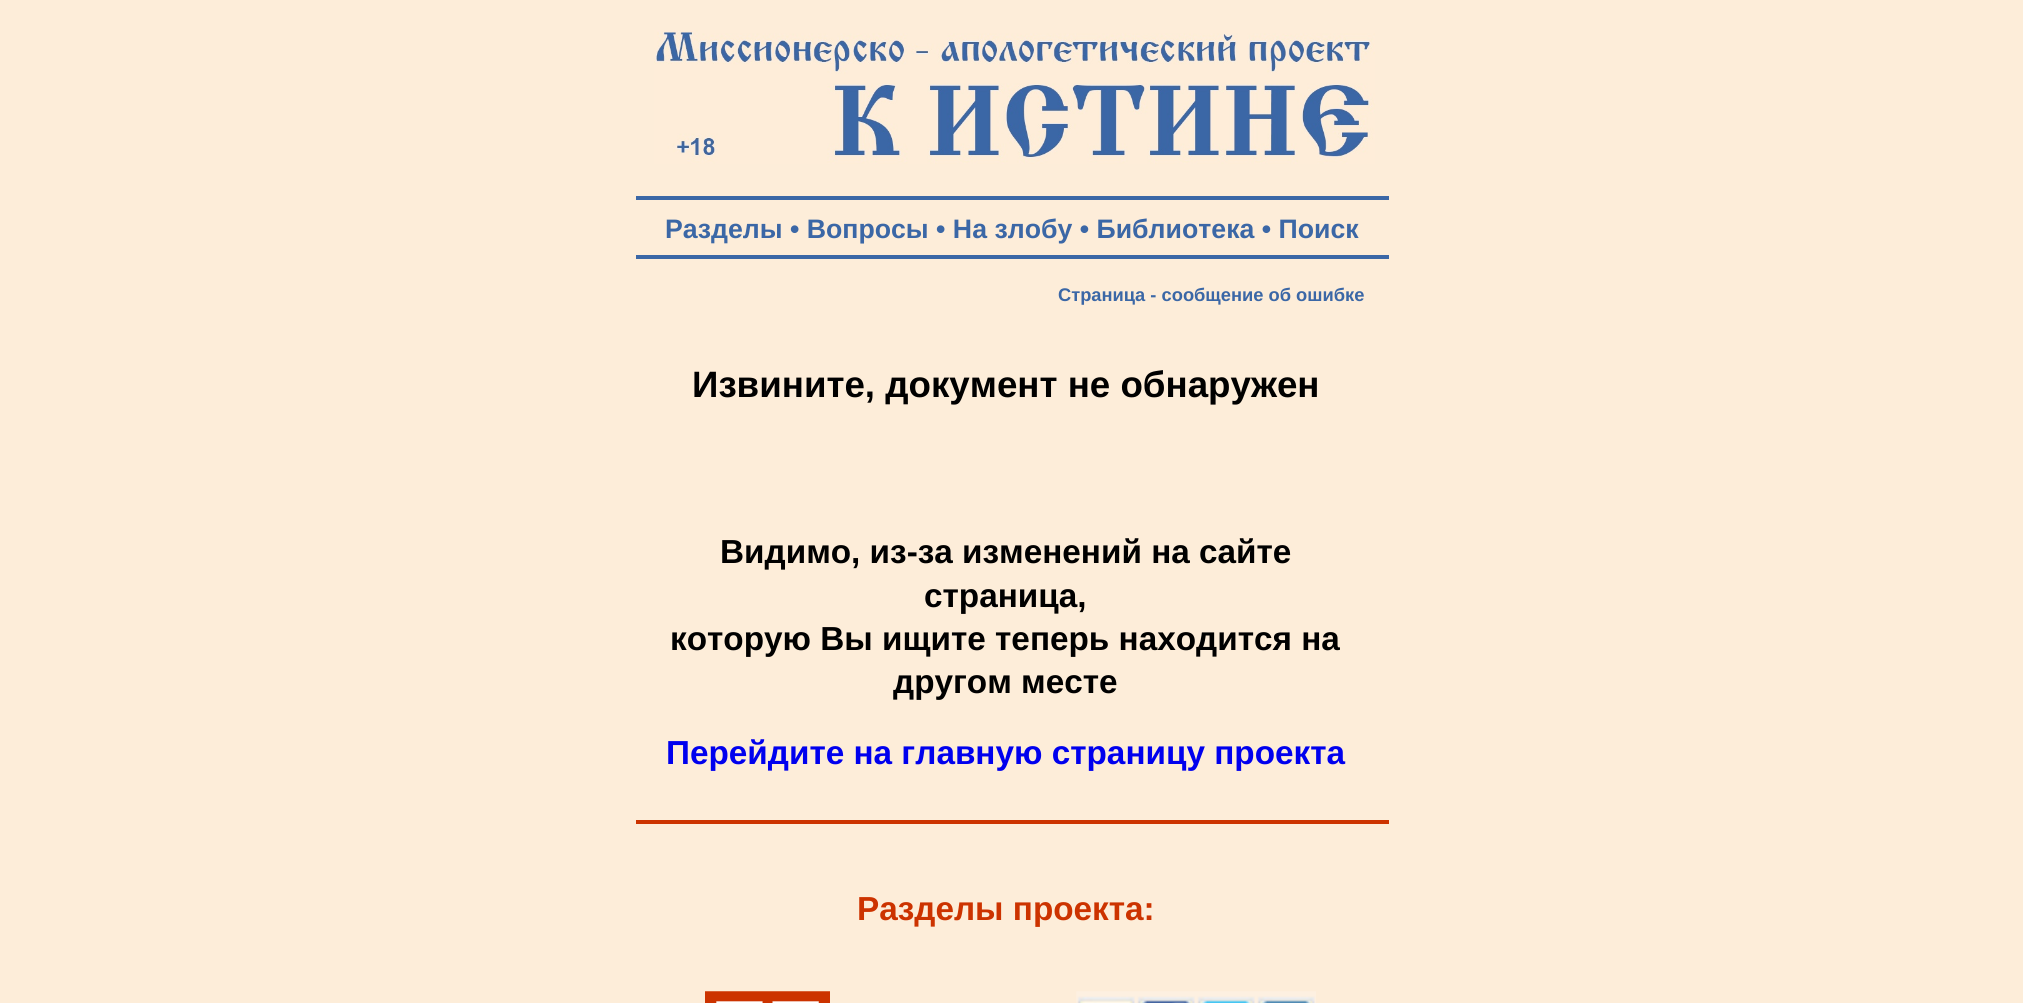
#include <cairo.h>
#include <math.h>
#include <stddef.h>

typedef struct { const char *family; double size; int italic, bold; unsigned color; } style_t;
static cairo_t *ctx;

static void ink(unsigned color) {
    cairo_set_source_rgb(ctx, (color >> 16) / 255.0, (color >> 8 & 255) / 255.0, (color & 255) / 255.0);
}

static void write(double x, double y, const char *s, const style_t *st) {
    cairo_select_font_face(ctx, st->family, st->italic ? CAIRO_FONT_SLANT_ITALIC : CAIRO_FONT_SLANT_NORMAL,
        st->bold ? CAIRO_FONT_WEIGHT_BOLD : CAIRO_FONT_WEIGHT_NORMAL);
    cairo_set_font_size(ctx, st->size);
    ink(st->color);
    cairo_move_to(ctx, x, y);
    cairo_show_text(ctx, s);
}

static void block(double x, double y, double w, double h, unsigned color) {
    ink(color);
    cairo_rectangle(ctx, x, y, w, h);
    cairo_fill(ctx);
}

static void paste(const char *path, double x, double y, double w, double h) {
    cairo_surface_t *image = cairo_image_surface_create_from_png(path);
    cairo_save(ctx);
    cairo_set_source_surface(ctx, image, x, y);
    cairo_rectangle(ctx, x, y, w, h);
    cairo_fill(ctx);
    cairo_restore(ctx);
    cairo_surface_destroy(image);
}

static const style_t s1 = {"Liberation Sans", 26.7, 0, 1, 0x3b67a6};
static const style_t s2 = {"Liberation Sans", 18.3, 0, 1, 0x3b67a6};
static const style_t s3 = {"Liberation Sans", 36.7, 0, 1, 0x000000};
static const style_t s4 = {"Liberation Sans", 33.3, 0, 1, 0x000000};
static const style_t s5 = {"Liberation Sans", 33.3, 0, 1, 0x0000ee};
static const style_t s6 = {"Liberation Sans", 33.3, 0, 1, 0xcc3300};

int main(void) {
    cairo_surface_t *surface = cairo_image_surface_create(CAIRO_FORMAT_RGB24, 2023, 1003);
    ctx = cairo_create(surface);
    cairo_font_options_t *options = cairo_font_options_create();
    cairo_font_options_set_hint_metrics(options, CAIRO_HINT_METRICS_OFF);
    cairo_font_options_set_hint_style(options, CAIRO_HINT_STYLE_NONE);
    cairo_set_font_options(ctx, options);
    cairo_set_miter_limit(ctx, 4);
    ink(0xfdedd9);
    cairo_paint(ctx);
    paste("pic1.png", 654, 30, 721, 134);
    block(636, 196, 753, 4, 0x3b67a6);
    write(665, 238, "Разделы • Вопросы • На злобу • Библиотека • Поиск", &s1);
    block(636, 255, 753, 4, 0x3b67a6);
    write(1058, 301, "Страница - сообщение об ошибке", &s2);
    write(692, 397, "Извините, документ не обнаружен", &s3);
    write(720, 563, "Видимо, из-за изменений на сайте", &s4);
    write(924, 607, "страница,", &s4);
    write(670, 650, "которую Вы ищите теперь находится на", &s4);
    write(893, 693, "другом месте", &s4);
    write(666, 764, "Перейдите на главную страницу проекта", &s5);
    block(636, 820, 753, 4, 0xcc3300);
    write(857, 920, "Разделы проекта:", &s6);
    paste("pic2.png", 705, 991, 125, 12);
    paste("pic3.png", 1076, 991, 240, 12);
    cairo_surface_write_to_png(surface, "screenshot.png");
    cairo_font_options_destroy(options);
    cairo_destroy(ctx);
    cairo_surface_destroy(surface);
    return 0;
}
